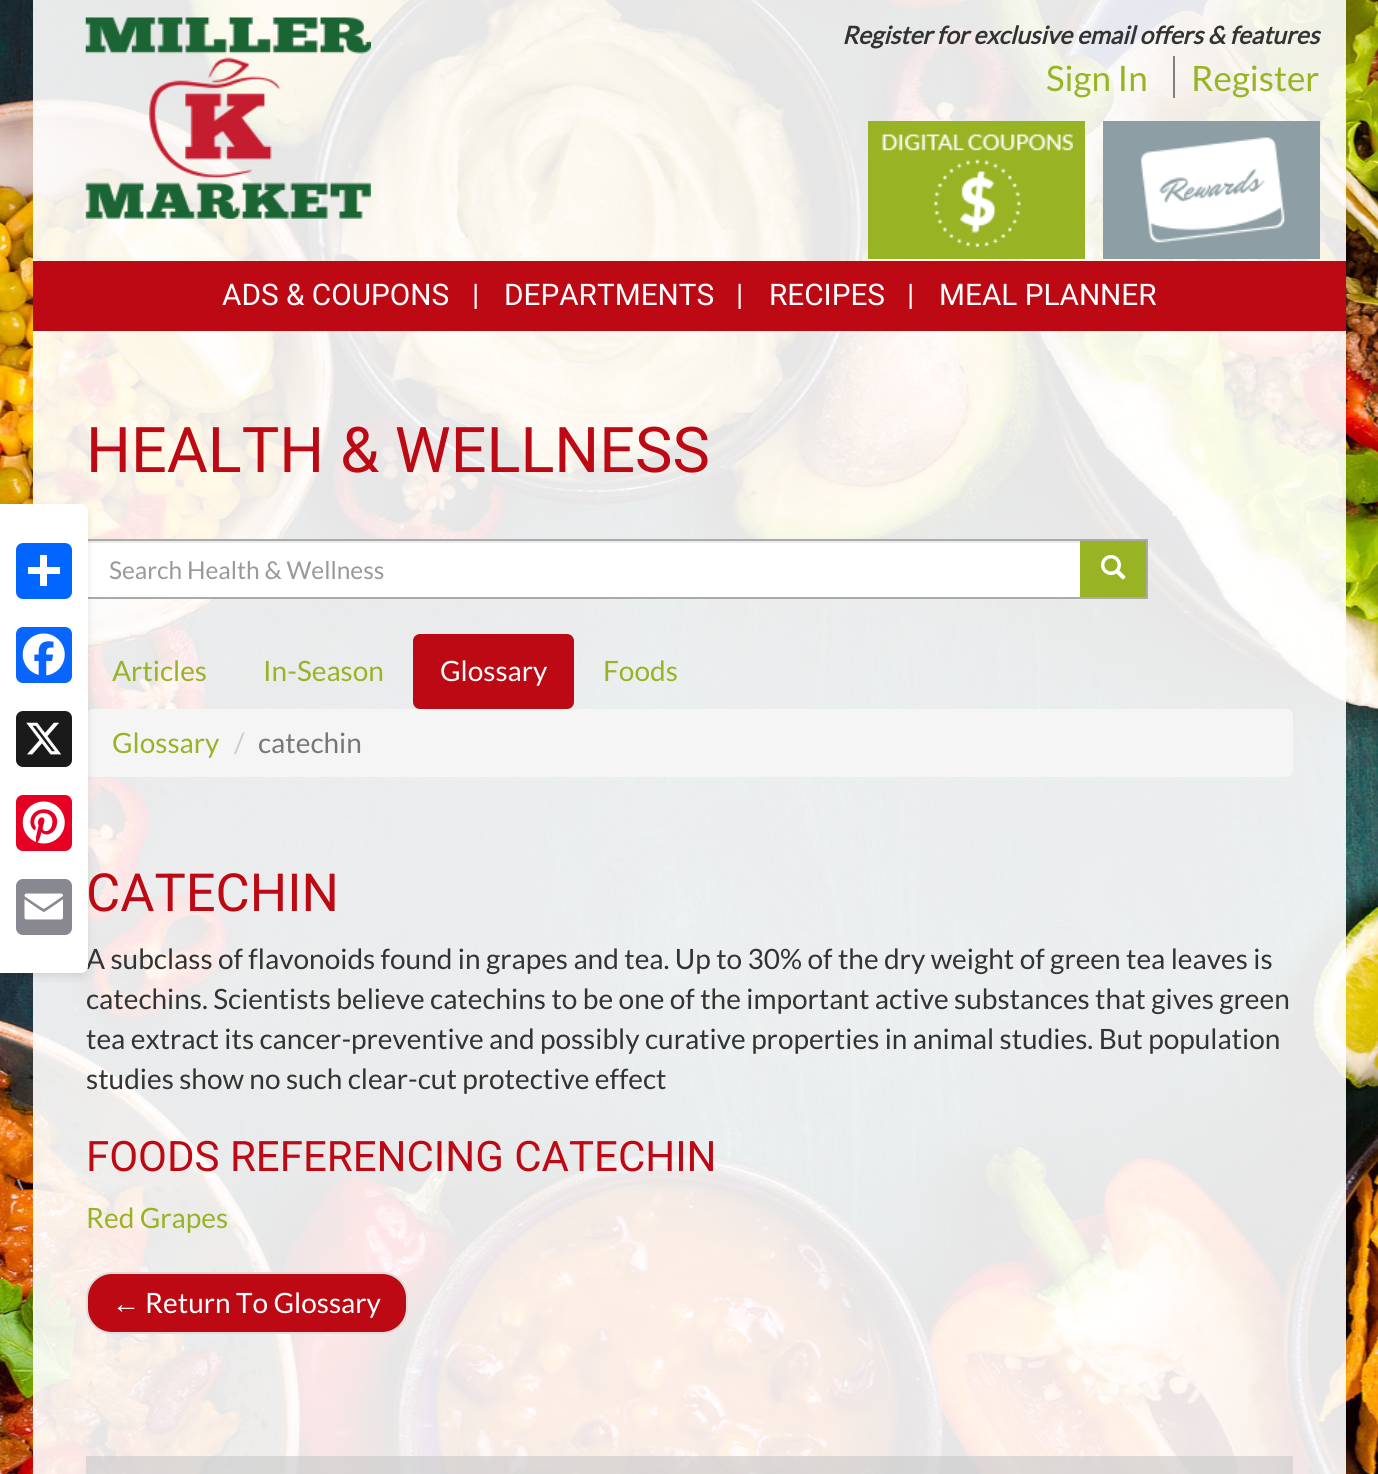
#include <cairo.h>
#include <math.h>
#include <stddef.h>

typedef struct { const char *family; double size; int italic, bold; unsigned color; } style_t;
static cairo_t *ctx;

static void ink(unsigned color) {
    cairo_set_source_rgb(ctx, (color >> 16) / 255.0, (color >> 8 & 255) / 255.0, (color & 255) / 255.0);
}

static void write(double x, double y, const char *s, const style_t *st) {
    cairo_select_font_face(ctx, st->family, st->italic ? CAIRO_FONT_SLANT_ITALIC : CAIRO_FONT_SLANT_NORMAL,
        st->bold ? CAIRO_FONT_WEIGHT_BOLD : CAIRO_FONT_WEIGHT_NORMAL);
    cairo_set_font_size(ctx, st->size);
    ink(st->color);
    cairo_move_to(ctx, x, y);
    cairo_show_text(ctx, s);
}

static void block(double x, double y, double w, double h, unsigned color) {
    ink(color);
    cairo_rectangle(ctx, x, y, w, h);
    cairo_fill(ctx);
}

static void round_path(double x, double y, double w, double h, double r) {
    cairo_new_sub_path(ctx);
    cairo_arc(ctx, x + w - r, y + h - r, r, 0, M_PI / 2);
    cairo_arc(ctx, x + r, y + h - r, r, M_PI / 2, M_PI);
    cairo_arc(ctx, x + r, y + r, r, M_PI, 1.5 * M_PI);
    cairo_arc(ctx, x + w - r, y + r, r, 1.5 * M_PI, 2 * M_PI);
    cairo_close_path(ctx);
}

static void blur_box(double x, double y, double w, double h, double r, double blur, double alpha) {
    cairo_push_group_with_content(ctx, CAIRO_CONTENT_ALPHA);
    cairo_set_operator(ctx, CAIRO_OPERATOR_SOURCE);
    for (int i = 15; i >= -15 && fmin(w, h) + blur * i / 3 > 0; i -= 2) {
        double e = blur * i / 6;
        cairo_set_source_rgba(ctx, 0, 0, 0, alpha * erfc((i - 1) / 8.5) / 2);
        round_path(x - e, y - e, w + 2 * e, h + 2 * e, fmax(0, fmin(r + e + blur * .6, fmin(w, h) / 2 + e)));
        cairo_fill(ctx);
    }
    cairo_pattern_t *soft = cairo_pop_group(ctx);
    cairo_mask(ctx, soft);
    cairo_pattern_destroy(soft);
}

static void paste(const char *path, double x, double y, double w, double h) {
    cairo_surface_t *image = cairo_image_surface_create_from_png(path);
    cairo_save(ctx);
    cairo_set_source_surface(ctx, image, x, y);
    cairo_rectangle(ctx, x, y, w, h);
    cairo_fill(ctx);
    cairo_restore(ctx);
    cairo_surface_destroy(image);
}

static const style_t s1 = {"Lato", 28, 0, 0, 0x333333};
static const style_t s2 = {"Lato", 24.5, 1, 1, 0x333333};
static const style_t s3 = {"Lato", 35, 0, 0, 0x98b424};
static const style_t s4 = {"Roboto", 29.75, 0, 0, 0xffffff};
static const style_t s5 = {"Roboto", 63, 0, 0, 0xbc0914};
static const style_t s6 = {"Lato", 24.5, 0, 0, 0x999999};
static const style_t s7 = {"Lato", 28, 0, 0, 0x98b424};
static const style_t s8 = {"Lato", 28, 0, 0, 0xffffff};
static const style_t s9 = {"Lato", 28, 0, 0, 0xcccccc};
static const style_t s10 = {"Lato", 28, 0, 0, 0x777777};
static const style_t s11 = {"Roboto", 52.5, 0, 0, 0xbc0914};
static const style_t s12 = {"Roboto", 42, 0, 0, 0xbc0914};
static const style_t s13 = {"Liberation Sans", 28, 0, 0, 0xffffff};

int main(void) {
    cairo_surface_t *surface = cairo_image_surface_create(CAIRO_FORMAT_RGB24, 1378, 1474);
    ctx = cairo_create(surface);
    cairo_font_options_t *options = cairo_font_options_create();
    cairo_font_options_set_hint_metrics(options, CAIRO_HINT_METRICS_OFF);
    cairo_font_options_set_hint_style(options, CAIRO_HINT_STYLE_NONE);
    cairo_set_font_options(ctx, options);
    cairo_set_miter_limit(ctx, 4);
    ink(0xffffff);
    cairo_paint(ctx);
    paste("pic1.png", 0, 0, 1378, 1474);
    cairo_set_source_rgba(ctx, 1, 1, 1, 0.9);
    cairo_rectangle(ctx, 33, 331, 1313, 1143);
    cairo_fill(ctx);
    block(88, 543, 992, 54, 0xffffff);
    block(88, 541, 995, 2, 0xececec);
    cairo_rectangle(ctx, 87, 540, 997, 58);
    ink(0xaaaaaa);
    cairo_stroke(ctx);
    ink(0xf5f5f5);
    round_path(86, 709, 1207, 68, 7);
    cairo_fill(ctx);
    ink(0x000000);
    blur_box(0, 508, 88, 469, 7, 4.5, 0.1);
    write(86, 969, "A subclass of flavonoids found in grapes and tea. Up to 30% of the dry weight of green tea leaves is", &s1);
    ink(0xffffff);
    cairo_new_path(ctx);
    cairo_move_to(ctx, 0, 504);
    cairo_line_to(ctx, 81, 504);
    cairo_curve_to(ctx, 85, 504, 88, 507, 88, 511);
    cairo_line_to(ctx, 88, 966);
    cairo_curve_to(ctx, 88, 970, 85, 973, 81, 973);
    cairo_line_to(ctx, 0, 973);
    cairo_close_path(ctx);
    cairo_fill(ctx);
    ink(0x0166ff);
    round_path(16, 543, 56, 56, 7);
    cairo_fill(ctx);
    block(40, 555, 7, 31, 0xffffff);
    block(28, 567, 32, 7, 0xffffff);
    ink(0x0866ff);
    round_path(16, 627, 56, 56, 7);
    cairo_fill(ctx);
    paste("pic2.png", 22, 633, 43, 43);
    ink(0x1a1a1a);
    round_path(16, 711, 56, 56, 7);
    cairo_fill(ctx);
    paste("pic3.png", 26, 722, 36, 33);
    ink(0xe60023);
    round_path(16, 795, 56, 56, 7);
    cairo_fill(ctx);
    paste("pic4.png", 22, 801, 43, 43);
    ink(0x888990);
    round_path(16, 879, 56, 56, 7);
    cairo_fill(ctx);
    paste("pic5.png", 24, 893, 39, 27);
    cairo_set_source_rgba(ctx, 1, 1, 1, 0.9);
    cairo_rectangle(ctx, 33, 0, 1313, 261);
    cairo_fill(ctx);
    paste("pic6.png", 85, 17, 286, 202);
    write(842, 44, "Register for exclusive email offers & features", &s2);
    write(1046, 91, "Sign In", &s3);
    block(1173, 56, 2, 42, 0x808080);
    write(1191, 91, "Register", &s3);
    block(868, 121, 217, 138, 0x98b424);
    paste("pic7.png", 881, 134, 192, 113);
    block(1103, 121, 217, 138, 0x8d9fa5);
    paste("pic8.png", 1140, 137, 145, 106);
    block(33, 261, 1313, 70, 0xbc0914);
    write(222, 305, "ADS & COUPONS", &s4);
    write(472, 305, "|", &s4);
    write(504, 305, "DEPARTMENTS", &s4);
    write(736, 305, "|", &s4);
    write(769, 305, "RECIPES", &s4);
    write(907, 305, "|", &s4);
    write(939, 305, "MEAL PLANNER", &s4);
    write(86, 472, "HEALTH & WELLNESS", &s5);
    write(109, 579, "Search Health & Wellness", &s6);
    block(1080, 541, 66, 56, 0x98b424);
    block(1080, 539, 68, 2, 0xaaaaaa);
    block(1146, 539, 2, 60, 0xaaaaaa);
    block(1080, 597, 68, 2, 0xaaaaaa);
    paste("pic9.png", 1100, 554, 26, 26);
    write(112, 681, "Articles", &s7);
    write(263, 681, "In-Season", &s7);
    ink(0xbc0914);
    round_path(413, 634, 161, 75, 7);
    cairo_fill(ctx);
    write(440, 681, "Glossary", &s8);
    write(603, 681, "Foods", &s7);
    write(112, 753, "Glossary", &s7);
    write(234, 753, "/", &s9);
    write(258, 753, "catechin", &s10);
    write(86, 911, "CATECHIN", &s11);
    write(86, 1009, "catechins. Scientists believe catechins to be one of the important active substances that gives green", &s1);
    write(86, 1049, "tea extract its cancer-preventive and possibly curative properties in animal studies. But population", &s1);
    write(86, 1089, "studies show no such clear-cut protective effect", &s1);
    write(86, 1171, "FOODS REFERENCING CATECHIN", &s12);
    write(86, 1228, "Red Grapes", &s7);
    ink(0xbc0914);
    round_path(87, 1273, 320, 60, 25);
    cairo_fill_preserve(ctx);
    ink(0xdddddd);
    cairo_stroke(ctx);
    write(112, 1313, "←", &s13);
    write(145, 1313, "Return To Glossary", &s8);
    cairo_set_source_rgba(ctx, 0.8, 0.8, 0.8, 0.65);
    cairo_rectangle(ctx, 86, 1456, 1207, 18);
    cairo_fill(ctx);
    cairo_surface_write_to_png(surface, "screenshot.png");
    cairo_font_options_destroy(options);
    cairo_destroy(ctx);
    cairo_surface_destroy(surface);
    return 0;
}
